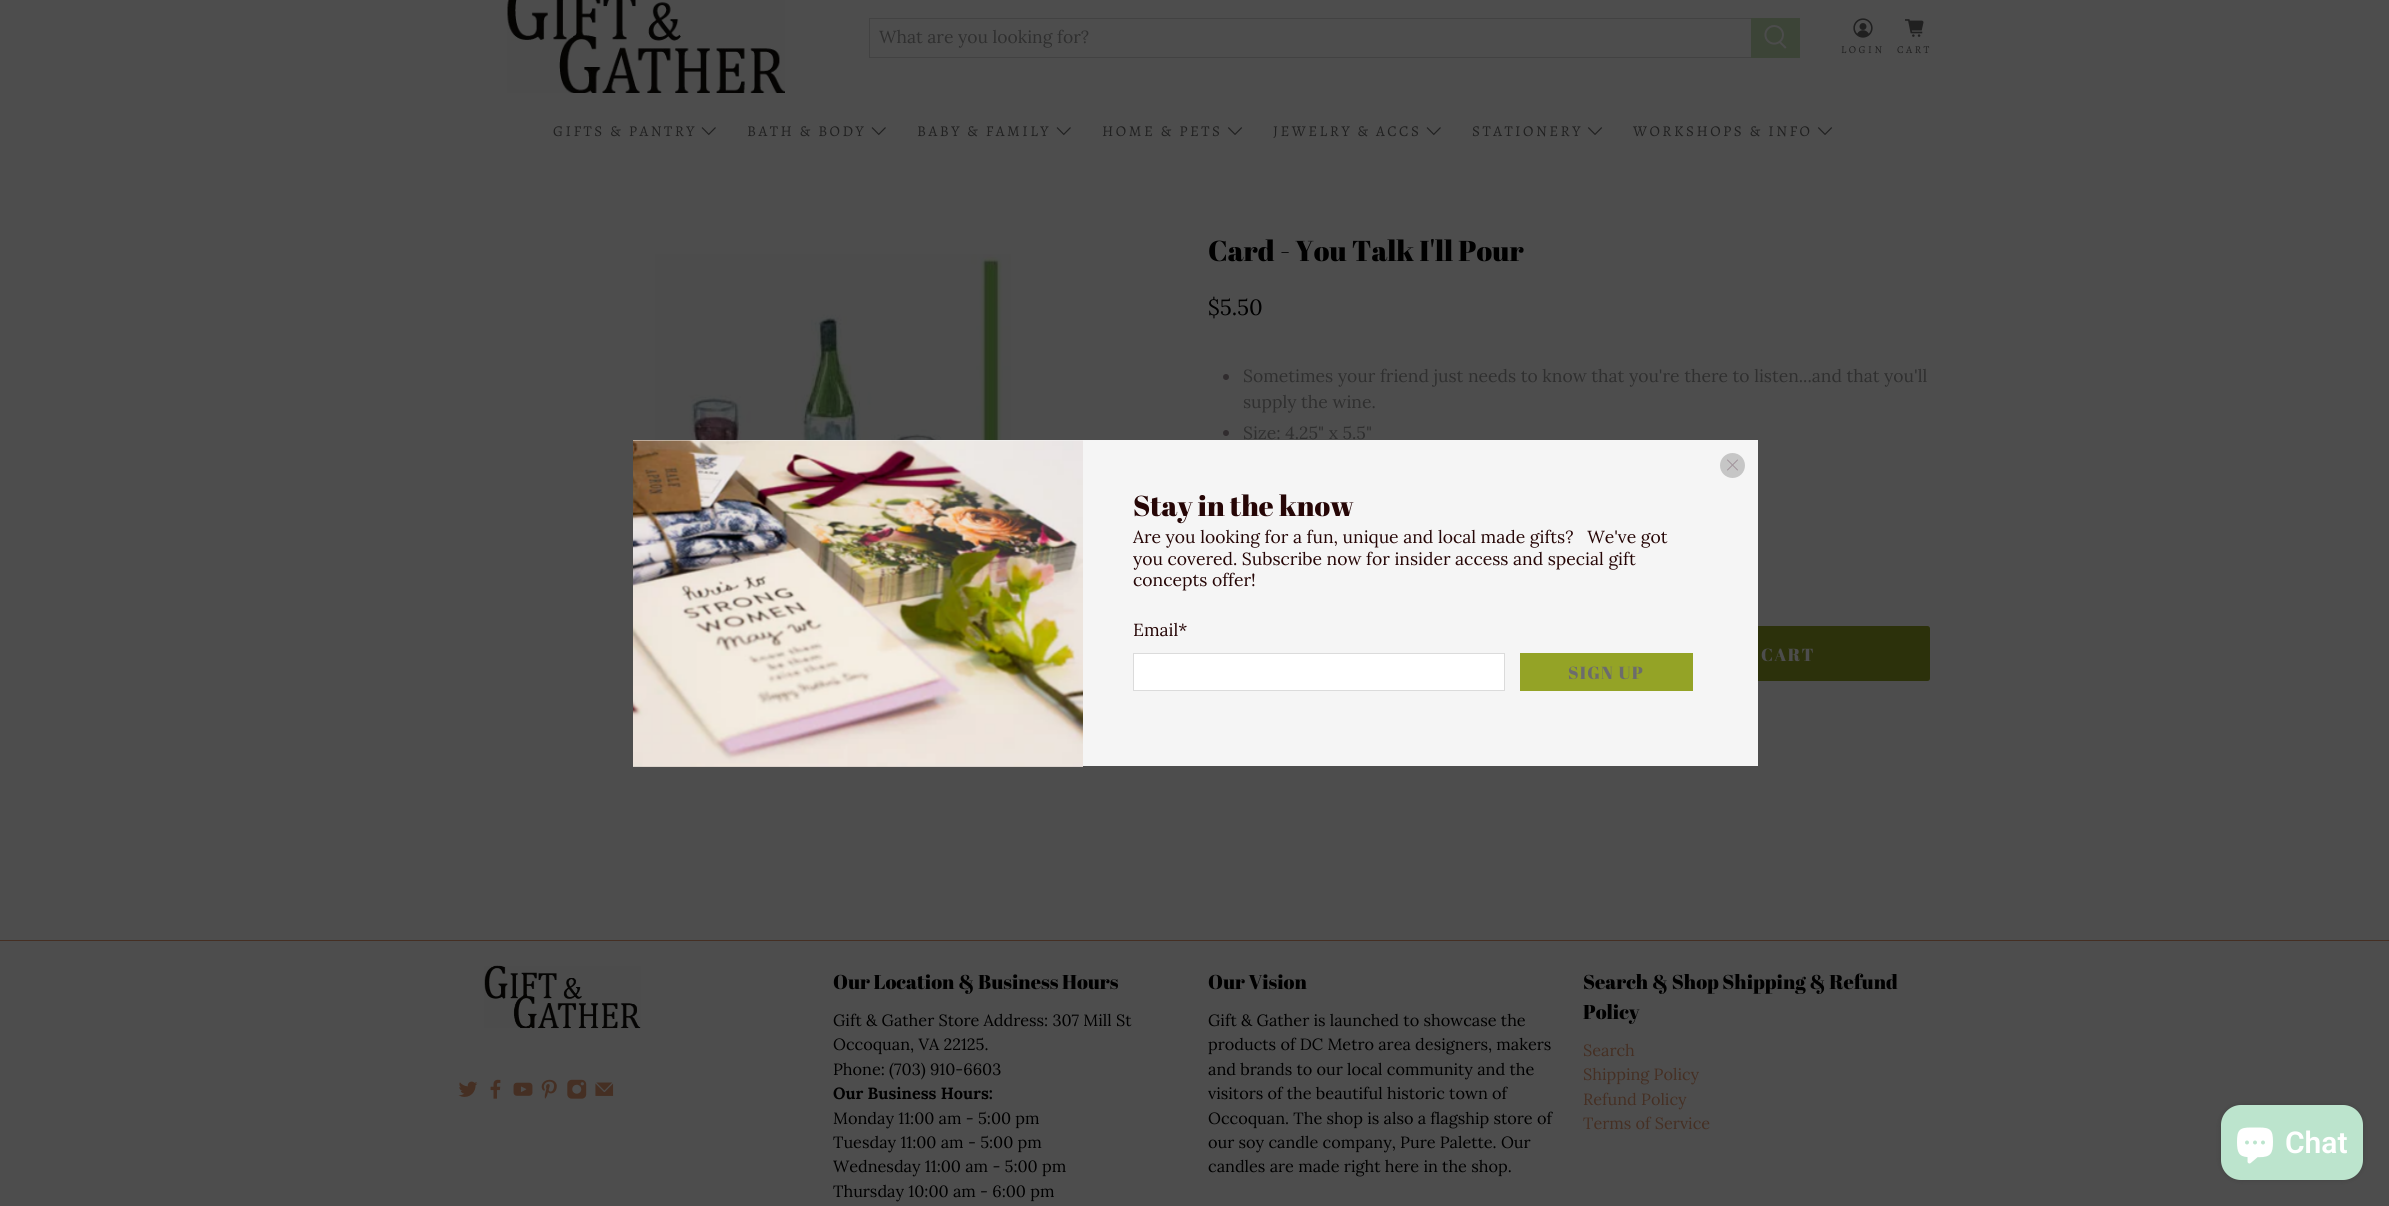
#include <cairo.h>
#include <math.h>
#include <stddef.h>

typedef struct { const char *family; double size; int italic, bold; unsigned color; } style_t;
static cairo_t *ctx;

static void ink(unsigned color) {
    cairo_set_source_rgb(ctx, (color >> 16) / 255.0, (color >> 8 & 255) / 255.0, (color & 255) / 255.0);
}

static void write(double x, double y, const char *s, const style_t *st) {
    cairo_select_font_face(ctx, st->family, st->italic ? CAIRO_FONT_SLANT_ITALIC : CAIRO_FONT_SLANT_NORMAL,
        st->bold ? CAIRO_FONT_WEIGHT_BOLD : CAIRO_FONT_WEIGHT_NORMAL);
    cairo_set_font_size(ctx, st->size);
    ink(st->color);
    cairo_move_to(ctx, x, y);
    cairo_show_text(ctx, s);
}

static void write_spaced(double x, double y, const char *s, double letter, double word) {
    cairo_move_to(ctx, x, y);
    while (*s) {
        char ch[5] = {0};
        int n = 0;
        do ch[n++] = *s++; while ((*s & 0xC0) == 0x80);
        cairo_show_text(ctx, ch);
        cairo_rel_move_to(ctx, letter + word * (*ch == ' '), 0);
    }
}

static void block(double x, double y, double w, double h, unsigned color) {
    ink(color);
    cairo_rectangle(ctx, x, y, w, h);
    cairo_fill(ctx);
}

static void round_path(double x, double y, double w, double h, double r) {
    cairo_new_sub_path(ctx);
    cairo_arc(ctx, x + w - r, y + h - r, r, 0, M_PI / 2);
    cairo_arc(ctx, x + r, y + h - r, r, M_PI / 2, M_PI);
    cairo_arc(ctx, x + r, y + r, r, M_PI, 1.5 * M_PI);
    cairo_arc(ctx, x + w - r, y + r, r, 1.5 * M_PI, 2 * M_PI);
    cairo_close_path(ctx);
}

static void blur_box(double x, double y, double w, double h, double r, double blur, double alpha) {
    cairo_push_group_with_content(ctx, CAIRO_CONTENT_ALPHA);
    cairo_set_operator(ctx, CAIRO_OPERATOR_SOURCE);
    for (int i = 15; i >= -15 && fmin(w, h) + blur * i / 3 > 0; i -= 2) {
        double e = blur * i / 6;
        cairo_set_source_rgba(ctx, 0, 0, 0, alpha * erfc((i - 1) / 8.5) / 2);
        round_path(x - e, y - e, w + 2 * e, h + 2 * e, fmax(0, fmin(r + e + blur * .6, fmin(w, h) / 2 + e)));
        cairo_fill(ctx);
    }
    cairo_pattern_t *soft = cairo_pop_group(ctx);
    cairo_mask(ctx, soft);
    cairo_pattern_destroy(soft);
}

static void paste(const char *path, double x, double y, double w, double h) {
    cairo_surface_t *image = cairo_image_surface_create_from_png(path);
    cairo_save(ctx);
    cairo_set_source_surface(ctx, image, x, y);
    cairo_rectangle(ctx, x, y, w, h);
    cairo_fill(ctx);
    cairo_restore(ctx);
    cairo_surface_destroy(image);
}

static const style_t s1 = {"Lora", 17.5, 0, 0, 0x2f2f2f};
static const style_t s2 = {"Abril Fatface", 28.75, 0, 0, 0x000000};
static const style_t s3 = {"Lora", 22, 0, 0, 0x000000};
static const style_t s4 = {"Abril Fatface", 28.75, 0, 0, 0x260606};
static const style_t s5 = {"Lora", 17.5, 0, 0, 0x260606};
static const style_t s6 = {"Abril Fatface", 20, 0, 0, 0x000000};
static const style_t s7 = {"Lora", 16.25, 0, 0, 0x000000};
static const style_t s8 = {"Lora", 16.25, 0, 1, 0x000000};
static const style_t s9 = {"Lora", 16.25, 0, 0, 0x452f23};
static const style_t s10 = {"Roboto SemiBold", 30, 0, 0, 0xffffff};

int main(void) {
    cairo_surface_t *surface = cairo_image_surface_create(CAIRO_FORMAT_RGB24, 2389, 1206);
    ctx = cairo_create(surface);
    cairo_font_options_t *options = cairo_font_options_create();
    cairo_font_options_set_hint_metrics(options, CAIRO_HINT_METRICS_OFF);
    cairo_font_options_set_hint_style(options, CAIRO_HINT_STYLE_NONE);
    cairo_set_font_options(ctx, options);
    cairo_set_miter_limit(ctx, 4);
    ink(0x4d4d4d);
    cairo_paint(ctx);
    paste("pic1.png", 507, 0, 278, 93);
    cairo_rectangle(ctx, 869.5, 18.5, 883, 39);
    ink(0x424242);
    cairo_set_line_width(ctx, 1);
    cairo_stroke(ctx);
    write(879, 43, "What are you looking for?", &s1);
    block(1751, 18, 49, 40, 0x3c4437);
    paste("pic2.png", 1764, 25, 23, 24);
    paste("pic3.png", 1853, 18, 20, 20);
    cairo_select_font_face(ctx, "Alegreya", CAIRO_FONT_SLANT_NORMAL, CAIRO_FONT_WEIGHT_NORMAL);
    cairo_set_font_size(ctx, 10.5);
    ink(0x202020);
    write_spaced(1841, 53, "LOGIN", 2.5, 0);
    paste("pic4.png", 1905, 19, 19, 18);
    write_spaced(1897, 53, "CART", 2.5, 0);
    cairo_set_font_size(ctx, 15);
    write_spaced(553, 136, "GIFTS & PANTRY", 2.5, 0);
    paste("pic5.png", 701, 127, 15, 9);
    write_spaced(747, 136, "BATH & BODY", 2.5, 0);
    paste("pic5.png", 871, 127, 15, 9);
    write_spaced(917, 136, "BABY & FAMILY", 2.5, 0);
    paste("pic5.png", 1056, 127, 15, 9);
    write_spaced(1102, 136, "HOME & PETS", 2.5, 0);
    paste("pic6.png", 1227, 127, 16, 8);
    write_spaced(1273, 136, "JEWELRY & ACCS", 2.5, 0);
    paste("pic5.png", 1426, 127, 15, 9);
    write_spaced(1472, 136, "STATIONERY", 2.5, 0);
    paste("pic6.png", 1587, 127, 16, 8);
    write_spaced(1633, 136, "WORKSHOPS & INFO", 2.5, 0);
    paste("pic6.png", 1817, 127, 16, 8);
    paste("pic7.png", 655, 254, 356, 186);
    write(1208, 261, "Card - You Talk I'll Pour", &s2);
    write(1208, 315, "$5.50", &s3);
    ink(0x302c2e);
    cairo_new_path(ctx);
    cairo_arc(ctx, 1226, 377, 3, 0, 2 * M_PI);
    cairo_fill(ctx);
    write(1243, 382, "Sometimes your friend just needs to know that you're there to listen...and that you'll", &s1);
    write(1243, 408, "supply the wine.", &s1);
    ink(0x302c2e);
    cairo_new_path(ctx);
    cairo_arc(ctx, 1226, 433, 3, 0, 2 * M_PI);
    cairo_fill(ctx);
    write(1243, 439, "Size: 4.25\" x 5.5\"", &s1);
    ink(0x2c310b);
    round_path(1568, 626, 362, 55, 2.5);
    cairo_fill(ctx);
    cairo_select_font_face(ctx, "Abril Fatface", CAIRO_FONT_SLANT_NORMAL, CAIRO_FONT_WEIGHT_NORMAL);
    ink(0x4d4d4d);
    write_spaced(1761, 661, "CART", 1.25, 0);
    block(633, 440, 1125, 326, 0xf5f5f5);
    ink(0xc6c6c6);
    cairo_new_path(ctx);
    cairo_arc(ctx, 1732.5, 465.5, 12.5, 0, 2 * M_PI);
    cairo_fill(ctx);
    paste("pic8.png", 1727, 459, 11, 12);
    paste("pic9.png", 633, 440, 450, 327);
    write(1133, 516, "Stay in the know", &s4);
    write(1133, 543, "Are you looking for a fun, unique and local made gifts?   We've got", &s5);
    write(1133, 565, "you covered. Subscribe now for insider access and special gift", &s5);
    write(1133, 586, "concepts offer!", &s5);
    write(1133, 636, "Email*", &s5);
    ink(0xffffff);
    cairo_rectangle(ctx, 1133.5, 653.5, 371, 37);
    cairo_fill_preserve(ctx);
    ink(0xdbdbdb);
    cairo_stroke(ctx);
    block(1520, 653, 173, 38, 0x94a326);
    cairo_select_font_face(ctx, "Abril Fatface", CAIRO_FONT_SLANT_NORMAL, CAIRO_FONT_WEIGHT_NORMAL);
    ink(0x6c6c6c);
    write_spaced(1568, 679, "SIGN UP", 1.25, 0);
    block(0, 940, 2389, 1, 0x452f23);
    paste("pic10.png", 484, 965, 157, 64);
    paste("pic11.png", 458, 1081, 20, 16);
    paste("pic12.png", 490, 1079, 11, 20);
    paste("pic13.png", 513, 1082, 20, 14);
    paste("pic14.png", 541, 1079, 16, 20);
    paste("pic15.png", 567, 1079, 20, 20);
    paste("pic16.png", 595, 1082, 19, 14);
    write(833, 989, "Our Location & Business Hours", &s6);
    write(833, 1026, "Gift & Gather Store Address: 307 Mill St", &s7);
    write(833, 1050, "Occoquan, VA 22125.", &s7);
    write(833, 1075, "Phone: (703) 910-6603", &s7);
    write(833, 1099, "Our Business Hours:", &s8);
    write(833, 1124, "Monday 11:00 am - 5:00 pm", &s7);
    write(833, 1148, "Tuesday 11:00 am - 5:00 pm", &s7);
    write(833, 1172, "Wednesday 11:00 am - 5:00 pm", &s7);
    write(833, 1197, "Thursday 10:00 am - 6:00 pm", &s7);
    write(1208, 989, "Our Vision", &s6);
    write(1208, 1026, "Gift & Gather is launched to showcase the", &s7);
    write(1208, 1050, "products of DC Metro area designers, makers", &s7);
    write(1208, 1075, "and brands to our local community and the", &s7);
    write(1208, 1099, "visitors of the beautiful historic town of", &s7);
    write(1208, 1124, "Occoquan. The shop is also a flagship store of", &s7);
    write(1208, 1148, "our soy candle company, Pure Palette. Our", &s7);
    write(1208, 1172, "candles are made right here in the shop.", &s7);
    write(1583, 989, "Search & Shop Shipping & Refund", &s6);
    write(1583, 1019, "Policy", &s6);
    write(1583, 1056, "Search", &s9);
    write(1583, 1080, "Shipping Policy", &s9);
    write(1583, 1105, "Refund Policy", &s9);
    write(1583, 1129, "Terms of Service", &s9);
    ink(0x000000);
    blur_box(2221, 1105, 142, 75, 20, 3, 0.15);
    ink(0xbce4cd);
    round_path(2221, 1105, 142, 75, 20);
    cairo_fill(ctx);
    paste("pic17.png", 2237, 1127, 36, 37);
    write(2285, 1153, "Chat", &s10);
    cairo_surface_write_to_png(surface, "screenshot.png");
    cairo_font_options_destroy(options);
    cairo_destroy(ctx);
    cairo_surface_destroy(surface);
    return 0;
}
